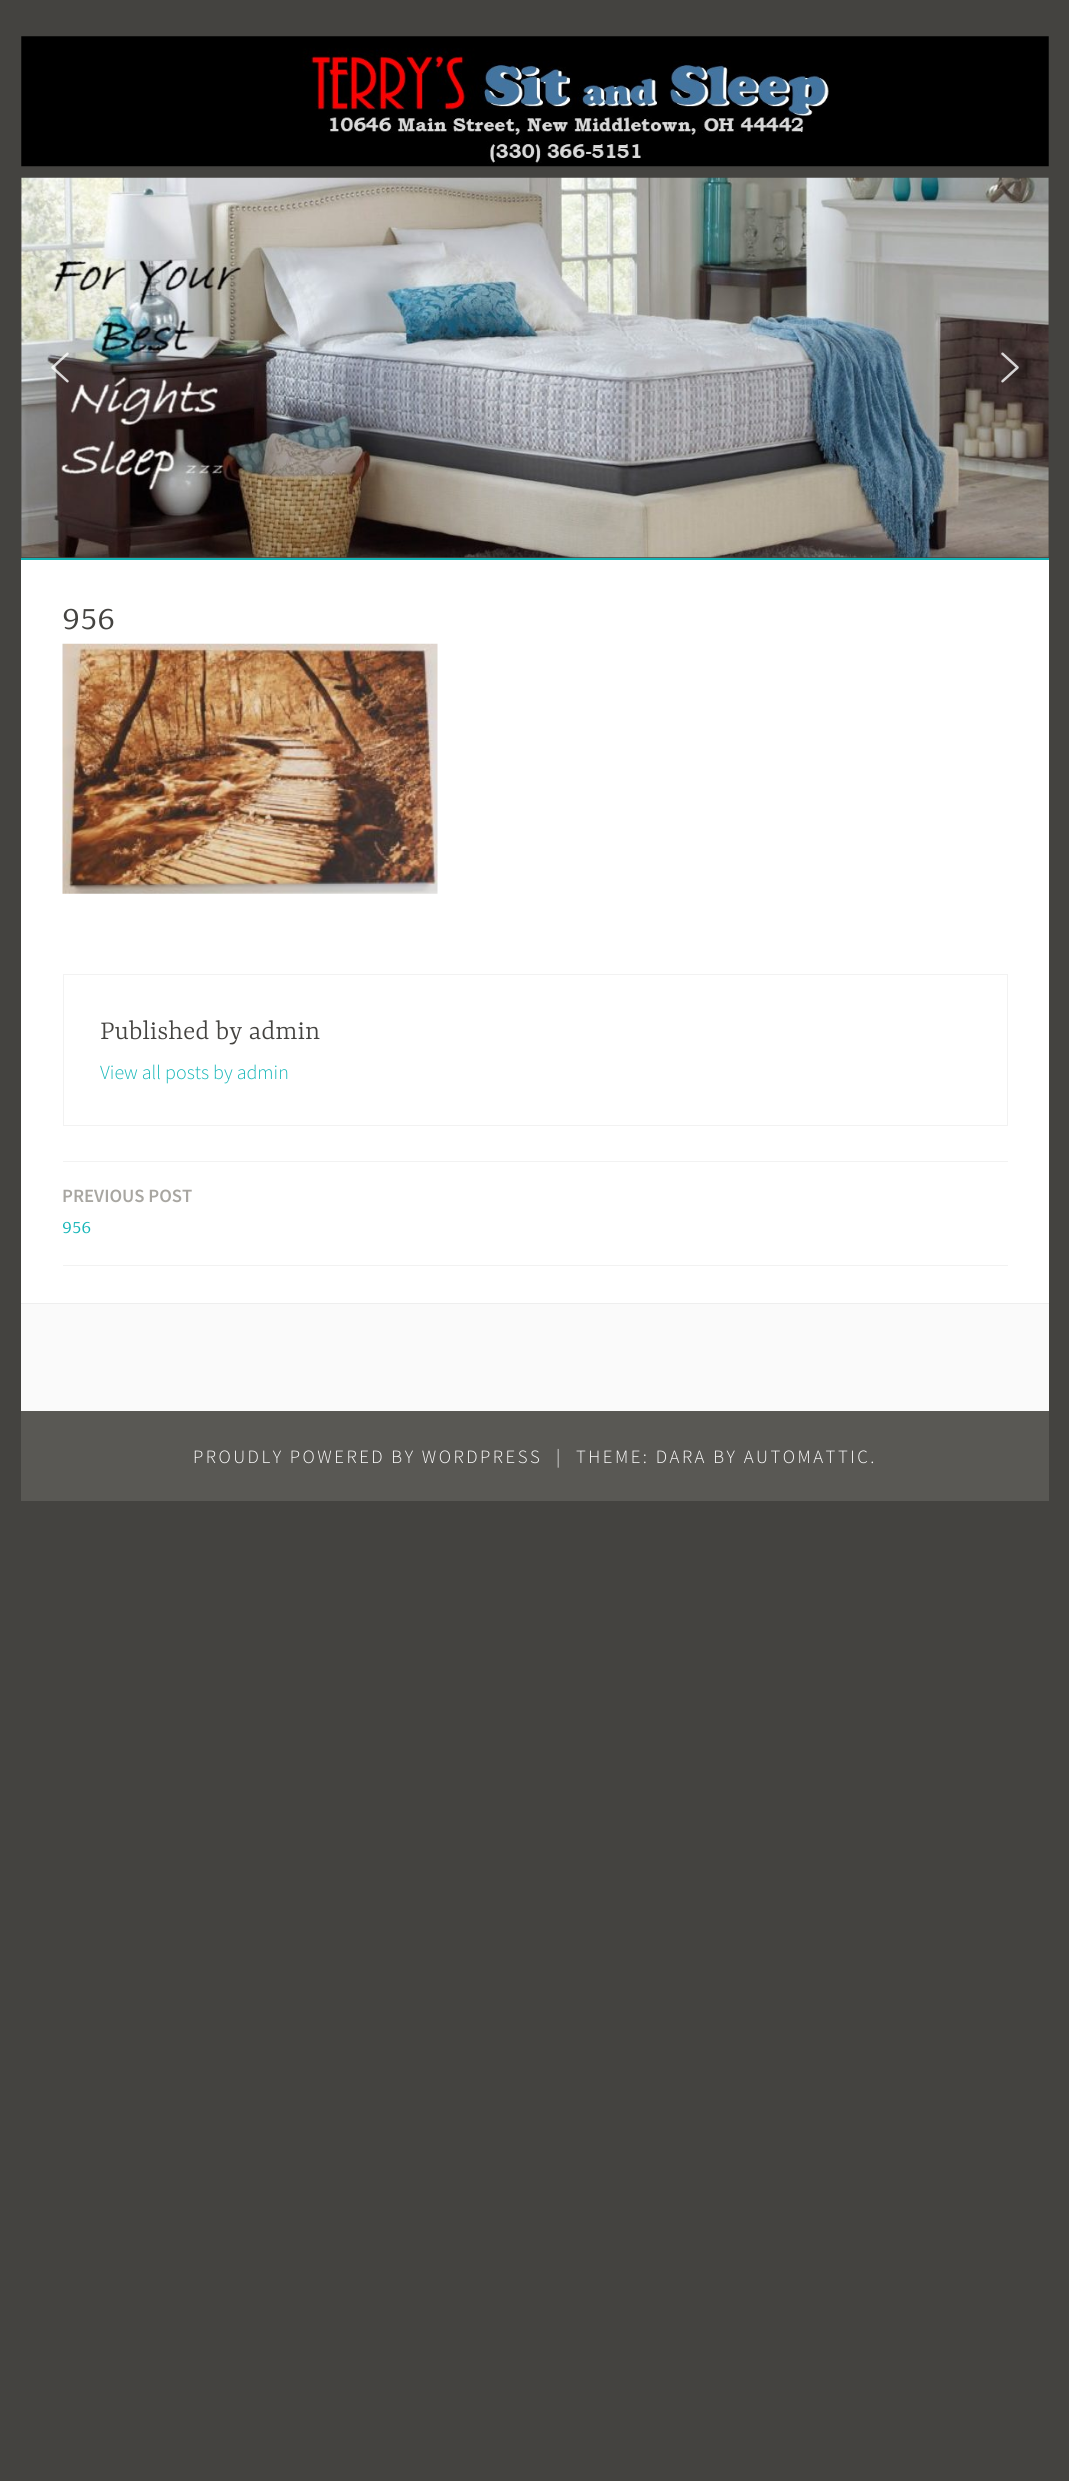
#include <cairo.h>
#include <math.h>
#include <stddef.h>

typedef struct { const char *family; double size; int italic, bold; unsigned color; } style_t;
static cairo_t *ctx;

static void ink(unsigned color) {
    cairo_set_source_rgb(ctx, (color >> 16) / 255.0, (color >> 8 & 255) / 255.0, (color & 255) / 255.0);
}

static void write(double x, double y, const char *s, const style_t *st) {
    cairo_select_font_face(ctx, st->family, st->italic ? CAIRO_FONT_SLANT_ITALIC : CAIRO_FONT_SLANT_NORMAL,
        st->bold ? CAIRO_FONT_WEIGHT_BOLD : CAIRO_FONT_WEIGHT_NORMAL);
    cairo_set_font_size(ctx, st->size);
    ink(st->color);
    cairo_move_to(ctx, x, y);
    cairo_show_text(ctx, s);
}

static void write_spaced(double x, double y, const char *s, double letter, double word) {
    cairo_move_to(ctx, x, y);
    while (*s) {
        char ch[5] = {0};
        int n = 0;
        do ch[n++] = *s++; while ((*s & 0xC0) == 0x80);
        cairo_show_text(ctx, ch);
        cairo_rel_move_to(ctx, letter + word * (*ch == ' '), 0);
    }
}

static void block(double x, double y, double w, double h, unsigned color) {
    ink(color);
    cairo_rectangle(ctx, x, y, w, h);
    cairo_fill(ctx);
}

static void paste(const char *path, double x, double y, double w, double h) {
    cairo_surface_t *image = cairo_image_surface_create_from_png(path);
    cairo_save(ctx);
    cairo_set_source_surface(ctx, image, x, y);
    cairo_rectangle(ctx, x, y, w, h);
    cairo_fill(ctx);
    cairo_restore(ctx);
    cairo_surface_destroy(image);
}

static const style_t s1 = {"Yrsa Light", 40, 0, 0, 0x444340};
static const style_t s2 = {"Yrsa Light", 28.75, 0, 0, 0x444340};
static const style_t s3 = {"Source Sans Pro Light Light", 20, 0, 0, 0x15b6b8};
static const style_t s4 = {"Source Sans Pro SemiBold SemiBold", 18.75, 0, 0, 0xa8a6a1};
static const style_t s5 = {"Yrsa Light", 22, 0, 0, 0x15b6b8};

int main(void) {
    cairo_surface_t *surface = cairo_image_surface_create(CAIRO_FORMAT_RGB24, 1069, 2481);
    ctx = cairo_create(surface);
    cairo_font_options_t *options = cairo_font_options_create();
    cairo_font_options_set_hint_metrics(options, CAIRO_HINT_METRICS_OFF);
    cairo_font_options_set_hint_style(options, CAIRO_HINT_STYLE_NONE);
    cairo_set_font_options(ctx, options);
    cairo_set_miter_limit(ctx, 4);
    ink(0x444340);
    cairo_paint(ctx);
    paste("pic1.png", 21, 36, 1028, 131);
    paste("pic2.png", 21, 177, 1028, 381);
    paste("pic3.png", 51, 352, 18, 31);
    paste("pic4.png", 1001, 352, 18, 31);
    block(21, 558, 1028, 2, 0x14b1b2);
    block(21, 560, 1028, 743, 0xffffff);
    write(62, 629, "956", &s1);
    paste("pic5.png", 62, 643, 376, 251);
    cairo_rectangle(ctx, 63.5, 974.5, 944, 151);
    ink(0xf2f2f2);
    cairo_set_line_width(ctx, 1);
    cairo_stroke(ctx);
    write(100, 1039, "Published by admin", &s2);
    write(100, 1079, "View all posts by admin", &s3);
    block(63, 1161, 945, 1, 0xf2f2f2);
    write(62, 1202, "PREVIOUS POST", &s4);
    write(62, 1233, "956", &s5);
    block(63, 1265, 945, 1, 0xf2f2f2);
    block(21, 1304, 1028, 107, 0xfafafa);
    block(21, 1303, 1028, 1, 0xeeeeee);
    block(21, 1411, 1028, 90, 0x595854);
    cairo_select_font_face(ctx, "Source Sans Pro Light Light", CAIRO_FONT_SLANT_NORMAL, CAIRO_FONT_WEIGHT_NORMAL);
    cairo_set_font_size(ctx, 18.75);
    ink(0xffffff);
    write_spaced(193, 1463, "PROUDLY POWERED BY WORDPRESS", 2.5, 0);
    write_spaced(556, 1463, "|", 2.5, 0);
    write_spaced(576, 1463, "THEME: DARA BY AUTOMATTIC.", 2.5, 0);
    cairo_surface_write_to_png(surface, "screenshot.png");
    cairo_font_options_destroy(options);
    cairo_destroy(ctx);
    cairo_surface_destroy(surface);
    return 0;
}
